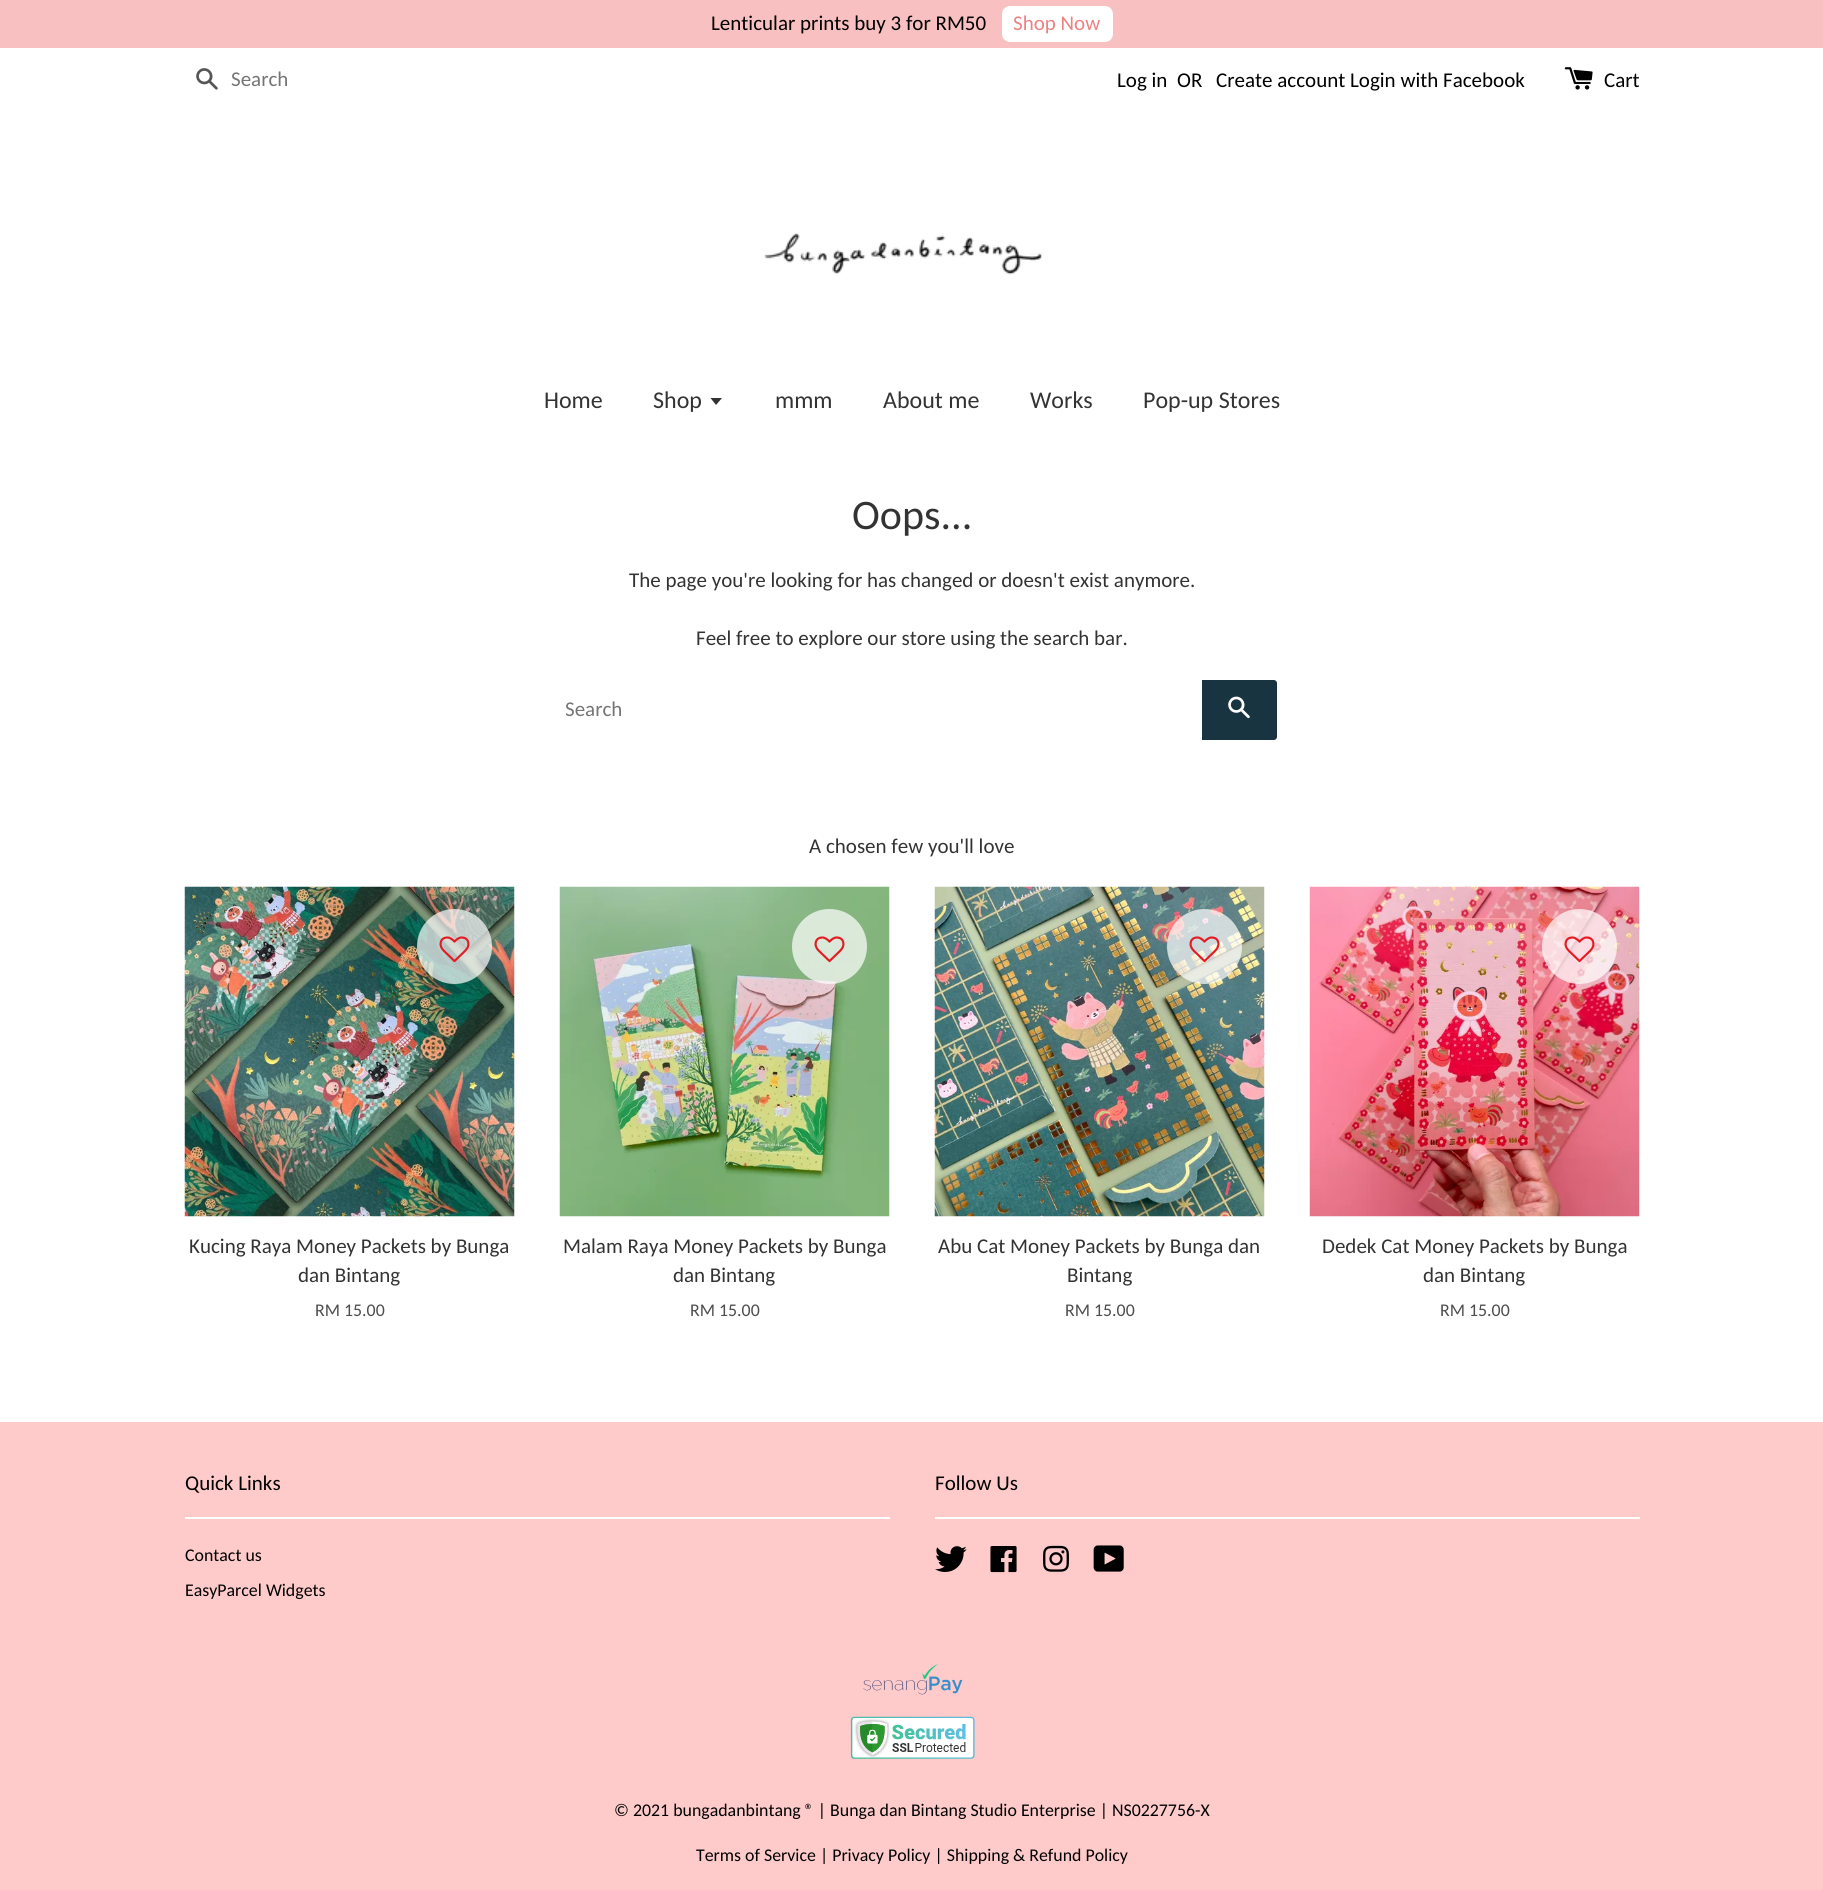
#include <cairo.h>
#include <math.h>
#include <stddef.h>

typedef struct { const char *family; double size; int italic, bold; unsigned color; } style_t;
static cairo_t *ctx;

static void ink(unsigned color) {
    cairo_set_source_rgb(ctx, (color >> 16) / 255.0, (color >> 8 & 255) / 255.0, (color & 255) / 255.0);
}

static void write(double x, double y, const char *s, const style_t *st) {
    cairo_select_font_face(ctx, st->family, st->italic ? CAIRO_FONT_SLANT_ITALIC : CAIRO_FONT_SLANT_NORMAL,
        st->bold ? CAIRO_FONT_WEIGHT_BOLD : CAIRO_FONT_WEIGHT_NORMAL);
    cairo_set_font_size(ctx, st->size);
    ink(st->color);
    cairo_move_to(ctx, x, y);
    cairo_show_text(ctx, s);
}

static void block(double x, double y, double w, double h, unsigned color) {
    ink(color);
    cairo_rectangle(ctx, x, y, w, h);
    cairo_fill(ctx);
}

static void round_path(double x, double y, double w, double h, double r) {
    cairo_new_sub_path(ctx);
    cairo_arc(ctx, x + w - r, y + h - r, r, 0, M_PI / 2);
    cairo_arc(ctx, x + r, y + h - r, r, M_PI / 2, M_PI);
    cairo_arc(ctx, x + r, y + r, r, M_PI, 1.5 * M_PI);
    cairo_arc(ctx, x + w - r, y + r, r, 1.5 * M_PI, 2 * M_PI);
    cairo_close_path(ctx);
}

static void paste(const char *path, double x, double y, double w, double h) {
    cairo_surface_t *image = cairo_image_surface_create_from_png(path);
    cairo_save(ctx);
    cairo_set_source_surface(ctx, image, x, y);
    cairo_rectangle(ctx, x, y, w, h);
    cairo_fill(ctx);
    cairo_restore(ctx);
    cairo_surface_destroy(image);
}

static const style_t s1 = {"Carlito", 21, 0, 0, 0x000000};
static const style_t s2 = {"Carlito", 21, 0, 0, 0xec8282};
static const style_t s3 = {"Carlito", 21, 0, 0, 0x757575};
static const style_t s4 = {"Carlito", 24, 0, 0, 0x333333};
static const style_t s5 = {"Carlito", 42, 0, 0, 0x333333};
static const style_t s6 = {"Carlito", 21, 0, 0, 0x333333};
static const style_t s7 = {"Carlito", 17.85, 0, 0, 0x4d4d4d};
static const style_t s8 = {"Carlito", 17.85, 0, 0, 0x000000};

int main(void) {
    cairo_surface_t *surface = cairo_image_surface_create(CAIRO_FORMAT_RGB24, 1823, 1890);
    ctx = cairo_create(surface);
    cairo_font_options_t *options = cairo_font_options_create();
    cairo_font_options_set_hint_metrics(options, CAIRO_HINT_METRICS_OFF);
    cairo_font_options_set_hint_style(options, CAIRO_HINT_STYLE_NONE);
    cairo_set_font_options(ctx, options);
    cairo_set_miter_limit(ctx, 4);
    ink(0xffffff);
    cairo_paint(ctx);
    block(0, 0, 1823, 48, 0xf8c0c0);
    write(711, 30, "Lenticular prints buy 3 for RM50", &s1);
    ink(0xffffff);
    round_path(1002, 6, 111, 36, 8);
    cairo_fill(ctx);
    write(1013, 30, "Shop Now", &s2);
    paste("pic1.png", 196, 68, 22, 22);
    write(231, 86, "Search", &s3);
    write(1117, 87, "Log in", &s1);
    write(1177, 87, "OR", &s1);
    write(1216, 87, "Create account Login with Facebook", &s1);
    paste("pic2.png", 1564, 67, 29, 23);
    write(1604, 87, "Cart", &s1);
    paste("pic3.png", 764, 233, 278, 42);
    write(544, 408, "Home", &s4);
    write(653, 408, "Shop", &s4);
    cairo_new_path(ctx);
    cairo_move_to(ctx, 710.5, 398);
    cairo_line_to(ctx, 716, 405);
    cairo_line_to(ctx, 722, 398);
    cairo_close_path(ctx);
    cairo_fill(ctx);
    write(775, 408, "mmm", &s4);
    write(883, 408, "About me", &s4);
    write(1030, 408, "Works", &s4);
    write(1143, 408, "Pop-up Stores", &s4);
    write(852, 529, "Oops...", &s5);
    write(629, 587, "The page you're looking for has changed or doesn't exist anymore.", &s6);
    write(696, 645, "Feel free to explore our store using the search bar.", &s6);
    cairo_save(ctx);
    cairo_rectangle(ctx, 566, 696, 613, 26);
    cairo_clip(ctx);
    write(565, 716, "Search", &s3);
    cairo_restore(ctx);
    ink(0x193441);
    cairo_new_path(ctx);
    cairo_move_to(ctx, 1202, 680);
    cairo_line_to(ctx, 1274, 680);
    cairo_curve_to(ctx, 1275.5, 680, 1277, 681.5, 1277, 683);
    cairo_line_to(ctx, 1277, 737);
    cairo_curve_to(ctx, 1277, 738.5, 1275.5, 740, 1274, 740);
    cairo_line_to(ctx, 1202, 740);
    cairo_close_path(ctx);
    cairo_fill(ctx);
    paste("pic4.png", 1228, 696, 22, 23);
    write(809, 853, "A chosen few you'll love", &s6);
    paste("pic5.png", 184, 886, 331, 331);
    cairo_set_source_rgba(ctx, 1, 1, 1, 0.7);
    cairo_arc(ctx, 454.5, 946.5, 37.5, 0, 2 * M_PI);
    cairo_fill(ctx);
    paste("pic6.png", 439, 936, 31, 27);
    write(189, 1253, "Kucing Raya Money Packets by Bunga", &s6);
    write(298, 1282, "dan Bintang", &s6);
    write(315, 1316, "RM 15.00", &s7);
    paste("pic7.png", 559, 886, 331, 331);
    cairo_set_source_rgba(ctx, 1, 1, 1, 0.7);
    cairo_arc(ctx, 829.5, 946.5, 37.5, 0, 2 * M_PI);
    cairo_fill(ctx);
    paste("pic8.png", 814, 936, 31, 27);
    write(563, 1253, "Malam Raya Money Packets by Bunga", &s6);
    write(673, 1282, "dan Bintang", &s6);
    write(690, 1316, "RM 15.00", &s7);
    paste("pic9.png", 934, 886, 331, 331);
    cairo_set_source_rgba(ctx, 1, 1, 1, 0.7);
    cairo_arc(ctx, 1204.5, 946.5, 37.5, 0, 2 * M_PI);
    cairo_fill(ctx);
    paste("pic10.png", 1189, 936, 31, 27);
    write(938, 1253, "Abu Cat Money Packets by Bunga dan", &s6);
    write(1067, 1282, "Bintang", &s6);
    write(1065, 1316, "RM 15.00", &s7);
    paste("pic11.png", 1309, 886, 331, 331);
    cairo_set_source_rgba(ctx, 1, 1, 1, 0.7);
    cairo_arc(ctx, 1579.5, 946.5, 37.5, 0, 2 * M_PI);
    cairo_fill(ctx);
    paste("pic12.png", 1564, 936, 31, 27);
    write(1322, 1253, "Dedek Cat Money Packets by Bunga", &s6);
    write(1423, 1282, "dan Bintang", &s6);
    write(1440, 1316, "RM 15.00", &s7);
    block(0, 1422, 1823, 468, 0xfecaca);
    block(185, 1517, 705, 2, 0xffffff);
    write(185, 1490, "Quick Links", &s1);
    write(185, 1561, "Contact us", &s8);
    write(185, 1596, "EasyParcel Widgets", &s8);
    block(935, 1517, 705, 2, 0xffffff);
    write(935, 1490, "Follow Us", &s1);
    paste("pic13.png", 935, 1546, 32, 26);
    paste("pic14.png", 990, 1546, 27, 27);
    paste("pic15.png", 1043, 1545, 26, 27);
    paste("pic16.png", 1093, 1545, 31, 27);
    paste("pic17.png", 863, 1664, 100, 31);
    paste("pic18.png", 850, 1716, 125, 43);
    write(614, 1816, "© 2021 bungadanbintang ® | Bunga dan Bintang Studio Enterprise | NS0227756-X", &s8);
    write(696, 1861, "Terms of Service | Privacy Policy | Shipping & Refund Policy", &s8);
    cairo_surface_write_to_png(surface, "screenshot.png");
    cairo_font_options_destroy(options);
    cairo_destroy(ctx);
    cairo_surface_destroy(surface);
    return 0;
}
